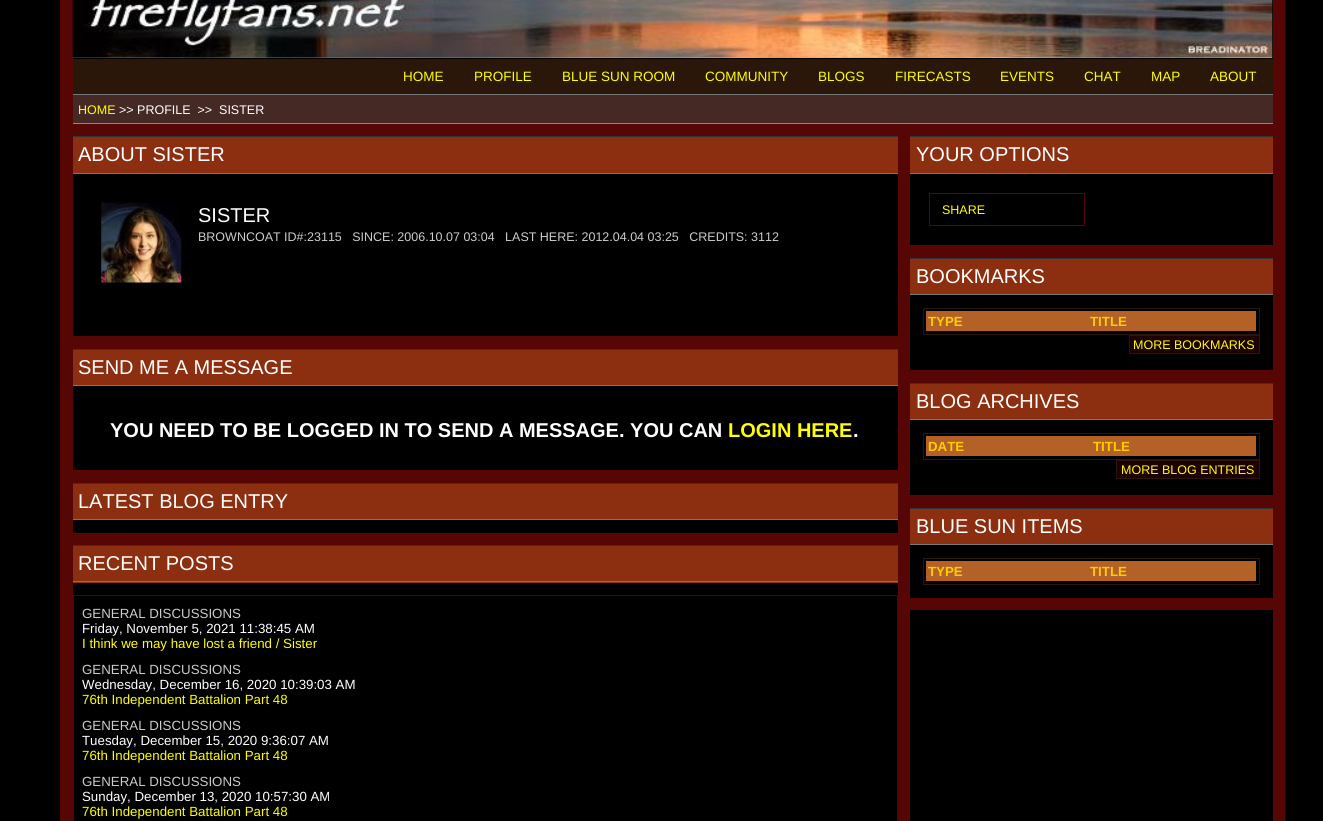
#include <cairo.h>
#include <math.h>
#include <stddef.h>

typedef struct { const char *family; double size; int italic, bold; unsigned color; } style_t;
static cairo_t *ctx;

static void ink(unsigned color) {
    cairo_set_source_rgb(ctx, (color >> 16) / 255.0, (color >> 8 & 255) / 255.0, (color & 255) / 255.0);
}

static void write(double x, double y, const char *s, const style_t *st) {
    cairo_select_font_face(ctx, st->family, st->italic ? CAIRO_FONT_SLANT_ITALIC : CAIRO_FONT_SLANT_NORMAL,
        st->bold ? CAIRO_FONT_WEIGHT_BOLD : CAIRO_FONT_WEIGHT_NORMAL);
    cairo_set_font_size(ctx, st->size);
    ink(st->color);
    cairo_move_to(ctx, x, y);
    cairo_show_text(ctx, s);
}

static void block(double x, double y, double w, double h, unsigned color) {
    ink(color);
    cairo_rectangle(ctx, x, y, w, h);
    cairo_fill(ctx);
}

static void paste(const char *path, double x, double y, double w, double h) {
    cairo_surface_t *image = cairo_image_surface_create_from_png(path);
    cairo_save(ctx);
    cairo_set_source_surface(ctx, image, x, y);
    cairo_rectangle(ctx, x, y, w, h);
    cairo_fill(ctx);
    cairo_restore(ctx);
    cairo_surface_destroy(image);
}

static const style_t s1 = {"Liberation Sans", 13.5, 0, 0, 0xffff00};
static const style_t s2 = {"Liberation Sans", 12.5, 0, 0, 0xffff00};
static const style_t s3 = {"Liberation Sans", 12.5, 0, 0, 0xffffff};
static const style_t s4 = {"Liberation Sans", 20, 0, 0, 0xffffff};
static const style_t s5 = {"Liberation Sans", 12.5, 0, 0, 0xcccccc};
static const style_t s6 = {"Liberation Sans", 20, 0, 1, 0xffffff};
static const style_t s7 = {"Liberation Sans", 20, 0, 1, 0xffff00};
static const style_t s8 = {"Liberation Sans", 13.3, 0, 0, 0xcccccc};
static const style_t s9 = {"Liberation Sans", 13.3, 0, 0, 0xffffff};
static const style_t s10 = {"Liberation Sans", 13.3, 0, 0, 0xffff00};
static const style_t s11 = {"Liberation Sans", 13.3, 0, 1, 0xffcc00};

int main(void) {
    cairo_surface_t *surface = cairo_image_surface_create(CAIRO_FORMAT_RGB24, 1323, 821);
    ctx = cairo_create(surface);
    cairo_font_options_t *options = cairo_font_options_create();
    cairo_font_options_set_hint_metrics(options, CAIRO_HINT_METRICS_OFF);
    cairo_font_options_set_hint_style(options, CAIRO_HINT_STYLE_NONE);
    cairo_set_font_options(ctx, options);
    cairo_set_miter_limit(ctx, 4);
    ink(0x000000);
    cairo_paint(ctx);
    cairo_rectangle(ctx, 66.5, -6.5, 1212, 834);
    ink(0x560605);
    cairo_set_line_width(ctx, 13);
    cairo_stroke(ctx);
    block(1272, 0, 1, 58, 0x000000);
    paste("pic1.png", 72, 0, 1201, 59);
    block(73, 58, 1200, 1, 0x000000);
    block(73, 59, 1200, 35, 0x2a1709);
    block(73, 94, 1200, 1, 0x777777);
    write(403, 81, "HOME", &s1);
    write(474, 81, "PROFILE", &s1);
    write(562, 81, "BLUE SUN ROOM", &s1);
    write(705, 81, "COMMUNITY", &s1);
    write(818, 81, "BLOGS", &s1);
    write(895, 81, "FIRECASTS", &s1);
    write(1000, 81, "EVENTS", &s1);
    write(1084, 81, "CHAT", &s1);
    write(1151, 81, "MAP", &s1);
    write(1210, 81, "ABOUT", &s1);
    block(73, 95, 1200, 28, 0x452925);
    block(73, 123, 1200, 1, 0x888888);
    write(78, 114, "HOME", &s2);
    write(119, 114, ">> PROFILE  >>  SISTER", &s3);
    block(1272, 174, 1, 647, 0x000000);
    block(73, 124, 1199, 12, 0x560605);
    block(898, 136, 12, 685, 0x560605);
    block(73, 137, 825, 36, 0x8c2f10);
    block(73, 136, 825, 1, 0x333333);
    block(73, 173, 825, 1, 0x777777);
    write(78, 161, "ABOUT SISTER", &s4);
    paste("pic2.png", 101, 202, 81, 81);
    write(198, 222, "SISTER", &s4);
    write(198, 241, "BROWNCOAT ID#:23115   SINCE: 2006.10.07 03:04   LAST HERE: 2012.04.04 03:25   CREDITS: 3112", &s5);
    block(73, 336, 825, 13, 0x560605);
    block(73, 350, 825, 35, 0x8c2f10);
    block(73, 349, 825, 1, 0x333333);
    block(73, 385, 825, 1, 0x777777);
    write(78, 374, "SEND ME A MESSAGE", &s4);
    block(73, 470, 825, 13, 0x560605);
    write(110, 437, "YOU NEED TO BE LOGGED IN TO SEND A MESSAGE. YOU CAN", &s6);
    write(728, 437, "LOGIN HERE", &s7);
    write(853, 437, ".", &s6);
    block(73, 484, 825, 35, 0x8c2f10);
    block(73, 483, 825, 1, 0x333333);
    block(73, 519, 825, 1, 0x777777);
    write(78, 508, "LATEST BLOG ENTRY", &s4);
    block(73, 533, 825, 12, 0x560605);
    block(73, 546, 825, 37, 0x8c2f10);
    block(73, 545, 825, 1, 0x333333);
    block(73, 581, 825, 1, 0x777777);
    write(78, 570, "RECENT POSTS", &s4);
    cairo_rectangle(ctx, 73.5, 595.5, 824, 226);
    ink(0x2a1709);
    cairo_set_line_width(ctx, 1);
    cairo_stroke(ctx);
    write(82, 618, "GENERAL DISCUSSIONS", &s8);
    write(82, 633, "Friday, November 5, 2021 11:38:45 AM", &s9);
    write(82, 648, "I think we may have lost a friend / Sister", &s10);
    write(82, 674, "GENERAL DISCUSSIONS", &s8);
    write(82, 689, "Wednesday, December 16, 2020 10:39:03 AM", &s9);
    write(82, 704, "76th Independent Battalion Part 48", &s10);
    write(82, 730, "GENERAL DISCUSSIONS", &s8);
    write(82, 745, "Tuesday, December 15, 2020 9:36:07 AM", &s9);
    write(82, 760, "76th Independent Battalion Part 48", &s10);
    write(82, 786, "GENERAL DISCUSSIONS", &s8);
    write(82, 801, "Sunday, December 13, 2020 10:57:30 AM", &s9);
    write(82, 816, "76th Independent Battalion Part 48", &s10);
    block(910, 245, 363, 13, 0x560605);
    block(910, 137, 363, 36, 0x8c2f10);
    block(910, 136, 363, 1, 0x333333);
    block(910, 173, 363, 1, 0x777777);
    write(916, 161, "YOUR OPTIONS", &s4);
    cairo_rectangle(ctx, 929.5, 193.5, 155, 32);
    ink(0x560605);
    cairo_stroke(ctx);
    write(942, 214, "SHARE", &s2);
    block(910, 370, 363, 13, 0x560605);
    block(910, 259, 363, 35, 0x8c2f10);
    block(910, 258, 363, 1, 0x333333);
    block(910, 294, 363, 1, 0x777777);
    write(916, 283, "BOOKMARKS", &s4);
    cairo_rectangle(ctx, 923.5, 308.5, 336, 26);
    ink(0x2a1709);
    cairo_stroke(ctx);
    block(926, 311, 330, 20, 0xb36127);
    write(928, 326, "TYPE", &s11);
    write(1090, 326, "TITLE", &s11);
    ink(0x1c0100);
    cairo_rectangle(ctx, 1129.5, 335.5, 130, 18);
    cairo_fill_preserve(ctx);
    ink(0x2a1709);
    cairo_stroke(ctx);
    write(1133, 349, "MORE BOOKMARKS", &s2);
    block(910, 495, 363, 13, 0x560605);
    block(910, 384, 363, 35, 0x8c2f10);
    block(910, 383, 363, 1, 0x333333);
    block(910, 419, 363, 1, 0x777777);
    write(916, 408, "BLOG ARCHIVES", &s4);
    cairo_rectangle(ctx, 923.5, 433.5, 336, 26);
    ink(0x2a1709);
    cairo_stroke(ctx);
    block(926, 436, 330, 20, 0xb36127);
    write(928, 451, "DATE", &s11);
    write(1093, 451, "TITLE", &s11);
    ink(0x1c0100);
    cairo_rectangle(ctx, 1116.5, 460.5, 143, 18);
    cairo_fill_preserve(ctx);
    ink(0x2a1709);
    cairo_stroke(ctx);
    write(1121, 474, "MORE BLOG ENTRIES", &s2);
    block(910, 598, 363, 12, 0x560605);
    block(910, 509, 363, 35, 0x8c2f10);
    block(910, 508, 363, 1, 0x333333);
    block(910, 544, 363, 1, 0x777777);
    write(916, 533, "BLUE SUN ITEMS", &s4);
    cairo_rectangle(ctx, 923.5, 558.5, 336, 26);
    ink(0x2a1709);
    cairo_stroke(ctx);
    block(926, 561, 330, 20, 0xb36127);
    write(928, 576, "TYPE", &s11);
    write(1090, 576, "TITLE", &s11);
    cairo_surface_write_to_png(surface, "screenshot.png");
    cairo_font_options_destroy(options);
    cairo_destroy(ctx);
    cairo_surface_destroy(surface);
    return 0;
}
